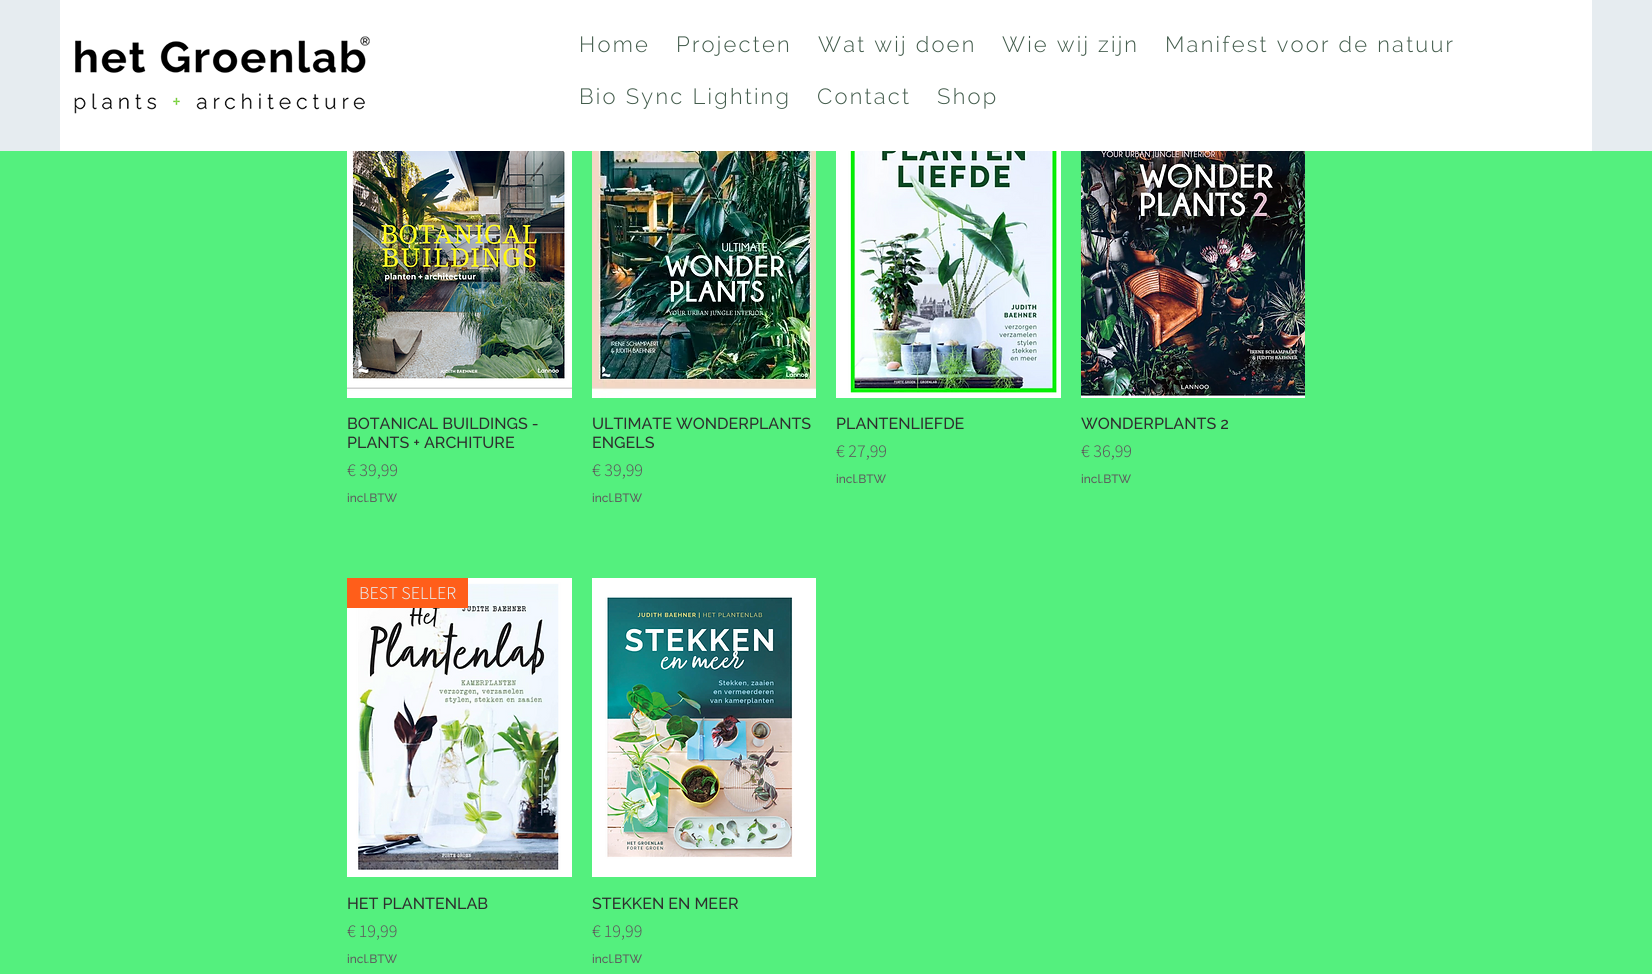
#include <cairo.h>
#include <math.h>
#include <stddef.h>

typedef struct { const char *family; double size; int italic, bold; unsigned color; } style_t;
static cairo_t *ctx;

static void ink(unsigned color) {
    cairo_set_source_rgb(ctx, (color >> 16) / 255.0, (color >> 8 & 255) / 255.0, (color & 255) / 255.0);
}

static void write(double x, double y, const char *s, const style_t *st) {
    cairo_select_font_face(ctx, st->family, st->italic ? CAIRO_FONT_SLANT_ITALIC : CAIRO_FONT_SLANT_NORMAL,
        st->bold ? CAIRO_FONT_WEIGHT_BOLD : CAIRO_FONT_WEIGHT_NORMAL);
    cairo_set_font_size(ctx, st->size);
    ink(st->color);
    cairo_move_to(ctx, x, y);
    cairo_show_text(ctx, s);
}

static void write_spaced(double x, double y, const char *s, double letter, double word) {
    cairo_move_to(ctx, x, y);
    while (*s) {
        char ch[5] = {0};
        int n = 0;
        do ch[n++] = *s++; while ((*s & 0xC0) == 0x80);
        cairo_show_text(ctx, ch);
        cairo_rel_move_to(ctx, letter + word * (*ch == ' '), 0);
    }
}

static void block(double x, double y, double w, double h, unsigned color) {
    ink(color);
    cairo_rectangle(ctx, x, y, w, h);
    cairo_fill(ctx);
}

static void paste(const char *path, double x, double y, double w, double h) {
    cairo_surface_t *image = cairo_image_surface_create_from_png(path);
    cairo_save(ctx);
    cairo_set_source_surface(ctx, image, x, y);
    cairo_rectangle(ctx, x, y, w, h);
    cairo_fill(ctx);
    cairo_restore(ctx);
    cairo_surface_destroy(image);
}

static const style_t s1 = {"Raleway Medium", 16, 0, 0, 0x2e2e2e};
static const style_t s2 = {"Assistant Light", 18, 0, 0, 0x5d5d5d};
static const style_t s3 = {"Raleway Medium", 12, 0, 0, 0x5d5d5d};
static const style_t s4 = {"Assistant Light", 18, 0, 0, 0xe6ecf0};

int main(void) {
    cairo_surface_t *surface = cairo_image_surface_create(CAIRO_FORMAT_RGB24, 1652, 974);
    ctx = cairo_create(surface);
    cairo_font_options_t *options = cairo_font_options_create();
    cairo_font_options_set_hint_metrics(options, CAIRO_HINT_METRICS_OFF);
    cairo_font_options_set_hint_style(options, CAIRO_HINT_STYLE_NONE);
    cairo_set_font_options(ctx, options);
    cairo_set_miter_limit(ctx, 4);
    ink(0x54f07e);
    cairo_paint(ctx);
    block(0, 0, 1652, 151, 0xe6ecf0);
    block(60, 0, 1532, 151, 0xffffff);
    paste("pic1.png", 74, 36, 296, 78);
    cairo_select_font_face(ctx, "Raleway Light", CAIRO_FONT_SLANT_NORMAL, CAIRO_FONT_WEIGHT_NORMAL);
    cairo_set_font_size(ctx, 22);
    ink(0x435c4c);
    write_spaced(579, 52, "Home", 2.2, 0);
    write_spaced(676, 52, "Projecten", 2.2, 0);
    write_spaced(818, 52, "Wat wij doen", 2.2, 0);
    write_spaced(1002, 52, "Wie wij zijn", 2.2, 0);
    write_spaced(1165, 52, "Manifest voor de natuur", 2.2, 0);
    write_spaced(579, 104, "Bio Sync Lighting", 2.2, 0);
    write_spaced(817, 104, "Contact", 2.2, 0);
    write_spaced(937, 104, "Shop", 2.2, 0);
    paste("pic2.png", 347, 151, 225, 247);
    write(347, 429, "BOTANICAL BUILDINGS -", &s1);
    write(347, 448, "PLANTS + ARCHITURE", &s1);
    write(347, 476, "€ 39,99", &s2);
    write(347, 502, "incl.BTW", &s3);
    paste("pic3.png", 592, 151, 224, 247);
    write(592, 429, "ULTIMATE WONDERPLANTS", &s1);
    write(592, 448, "ENGELS", &s1);
    write(592, 476, "€ 39,99", &s2);
    write(592, 502, "incl.BTW", &s3);
    paste("pic4.png", 836, 151, 225, 247);
    write(836, 429, "PLANTENLIEFDE", &s1);
    write(836, 457, "€ 27,99", &s2);
    write(836, 483, "incl.BTW", &s3);
    paste("pic5.png", 1081, 151, 224, 247);
    write(1081, 429, "WONDERPLANTS 2", &s1);
    write(1081, 457, "€ 36,99", &s2);
    write(1081, 483, "incl.BTW", &s3);
    paste("pic6.png", 347, 578, 225, 299);
    block(347, 578, 121, 30, 0xff5e1a);
    write(359, 599, "BEST SELLER", &s4);
    write(347, 909, "HET PLANTENLAB", &s1);
    write(347, 937, "€ 19,99", &s2);
    write(347, 963, "incl.BTW", &s3);
    paste("pic7.png", 592, 578, 224, 299);
    write(592, 909, "STEKKEN EN MEER", &s1);
    write(592, 937, "€ 19,99", &s2);
    write(592, 963, "incl.BTW", &s3);
    cairo_surface_write_to_png(surface, "screenshot.png");
    cairo_font_options_destroy(options);
    cairo_destroy(ctx);
    cairo_surface_destroy(surface);
    return 0;
}
